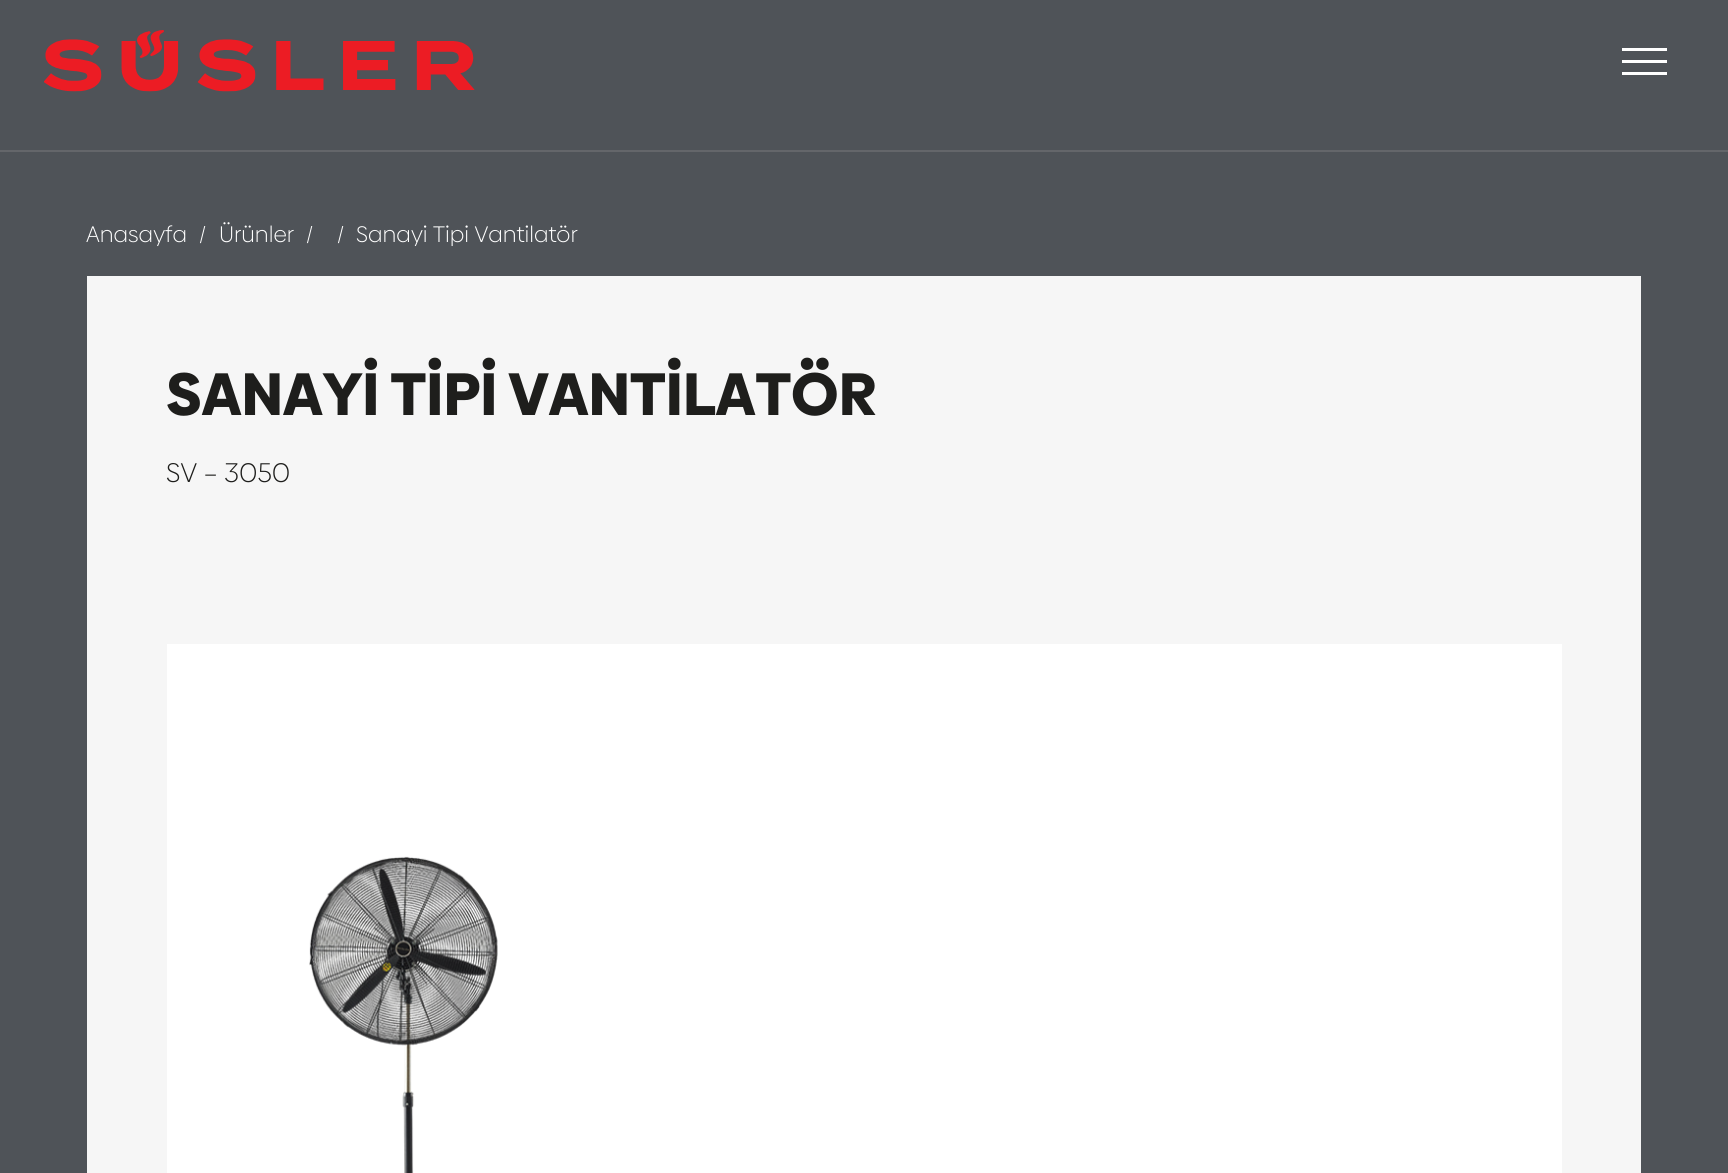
#include <cairo.h>
#include <math.h>
#include <stddef.h>

typedef struct { const char *family; double size; int italic, bold; unsigned color; } style_t;
static cairo_t *ctx;

static void ink(unsigned color) {
    cairo_set_source_rgb(ctx, (color >> 16) / 255.0, (color >> 8 & 255) / 255.0, (color & 255) / 255.0);
}

static void write(double x, double y, const char *s, const style_t *st) {
    cairo_select_font_face(ctx, st->family, st->italic ? CAIRO_FONT_SLANT_ITALIC : CAIRO_FONT_SLANT_NORMAL,
        st->bold ? CAIRO_FONT_WEIGHT_BOLD : CAIRO_FONT_WEIGHT_NORMAL);
    cairo_set_font_size(ctx, st->size);
    ink(st->color);
    cairo_move_to(ctx, x, y);
    cairo_show_text(ctx, s);
}

static void block(double x, double y, double w, double h, unsigned color) {
    ink(color);
    cairo_rectangle(ctx, x, y, w, h);
    cairo_fill(ctx);
}

static void paste(const char *path, double x, double y, double w, double h) {
    cairo_surface_t *image = cairo_image_surface_create_from_png(path);
    cairo_save(ctx);
    cairo_set_source_surface(ctx, image, x, y);
    cairo_rectangle(ctx, x, y, w, h);
    cairo_fill(ctx);
    cairo_restore(ctx);
    cairo_surface_destroy(image);
}

static const style_t s1 = {"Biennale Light", 22.5, 0, 0, 0xffffff};
static const style_t s2 = {"Biennale Black", 60, 0, 0, 0x1e1e1c};
static const style_t s3 = {"Biennale Light", 27, 0, 0, 0x1e1e1c};

int main(void) {
    cairo_surface_t *surface = cairo_image_surface_create(CAIRO_FORMAT_RGB24, 1728, 1173);
    ctx = cairo_create(surface);
    cairo_font_options_t *options = cairo_font_options_create();
    cairo_font_options_set_hint_metrics(options, CAIRO_HINT_METRICS_OFF);
    cairo_font_options_set_hint_style(options, CAIRO_HINT_STYLE_NONE);
    cairo_set_font_options(ctx, options);
    cairo_set_miter_limit(ctx, 4);
    ink(0x4f5358);
    cairo_paint(ctx);
    paste("pic1.png", 44, 30, 431, 62);
    block(1622, 48, 45, 3, 0xffffff);
    block(1622, 60, 45, 3, 0xffffff);
    block(1622, 72, 45, 3, 0xffffff);
    block(0, 150, 1728, 2, 0x64666a);
    write(86, 242, "Anasayfa", &s1);
    write(199, 242, "/", &s1);
    write(219, 242, "Ürünler", &s1);
    write(306, 242, "/", &s1);
    write(337, 242, "/", &s1);
    write(356, 242, "Sanayi Tipi Vantilatör", &s1);
    block(87, 276, 1554, 897, 0xf6f6f6);
    write(166, 415, "SANAYİ TİPİ VANTİLATÖR", &s2);
    write(166, 482, "SV – 3050", &s3);
    block(167, 644, 1395, 529, 0xffffff);
    paste("pic2.png", 309, 856, 189, 317);
    cairo_surface_write_to_png(surface, "screenshot.png");
    cairo_font_options_destroy(options);
    cairo_destroy(ctx);
    cairo_surface_destroy(surface);
    return 0;
}
